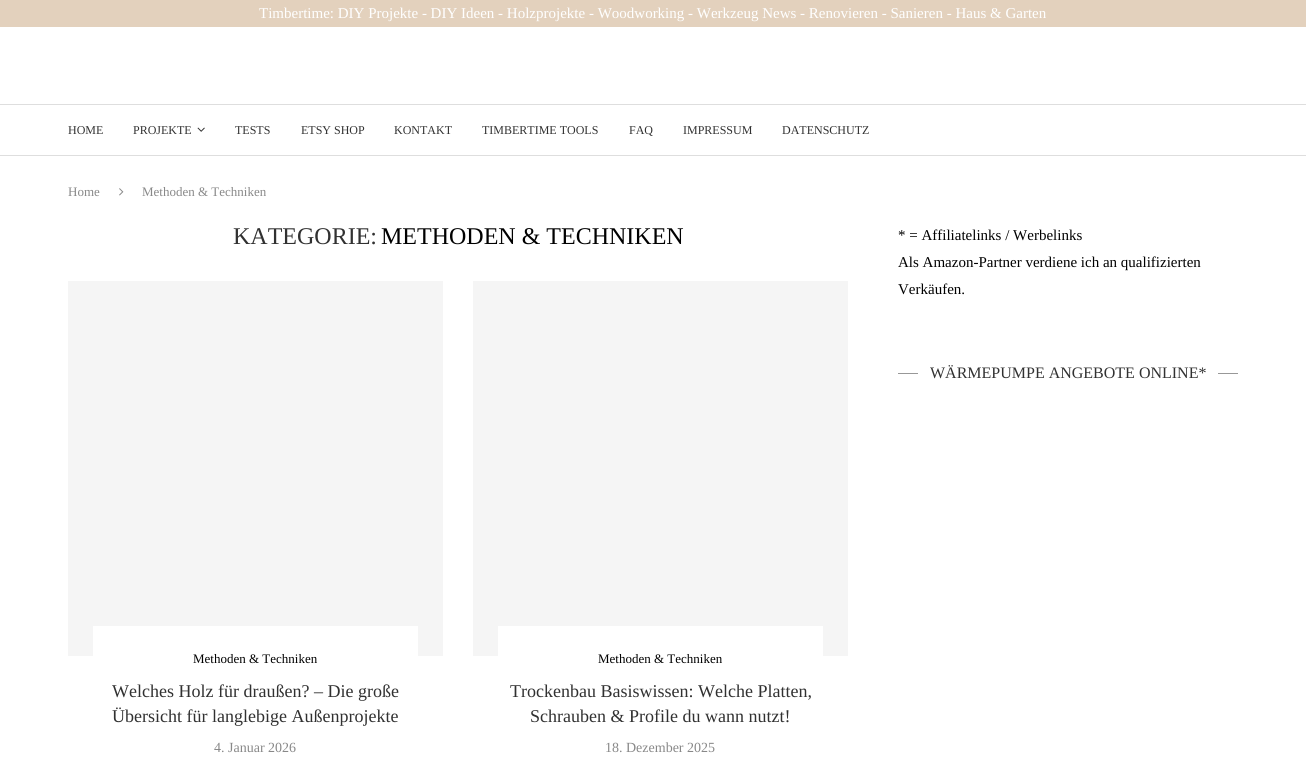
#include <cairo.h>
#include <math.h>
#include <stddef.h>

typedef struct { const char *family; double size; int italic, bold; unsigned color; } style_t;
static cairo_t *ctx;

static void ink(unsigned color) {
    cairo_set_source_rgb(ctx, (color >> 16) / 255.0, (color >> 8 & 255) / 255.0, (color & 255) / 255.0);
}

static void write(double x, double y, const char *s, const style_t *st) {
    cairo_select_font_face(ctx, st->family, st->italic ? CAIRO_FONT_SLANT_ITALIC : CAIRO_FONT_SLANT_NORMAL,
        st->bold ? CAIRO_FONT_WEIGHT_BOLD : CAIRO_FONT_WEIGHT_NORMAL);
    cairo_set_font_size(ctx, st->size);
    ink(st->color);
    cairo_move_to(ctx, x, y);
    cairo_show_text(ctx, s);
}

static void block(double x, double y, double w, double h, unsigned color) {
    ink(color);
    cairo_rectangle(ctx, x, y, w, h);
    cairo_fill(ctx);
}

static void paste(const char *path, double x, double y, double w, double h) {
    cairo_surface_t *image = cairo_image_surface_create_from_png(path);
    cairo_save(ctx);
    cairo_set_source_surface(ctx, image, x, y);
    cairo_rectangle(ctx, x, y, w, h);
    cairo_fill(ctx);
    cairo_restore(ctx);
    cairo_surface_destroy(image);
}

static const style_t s1 = {"Liberation Serif", 15, 0, 0, 0xffffff};
static const style_t s2 = {"Liberation Serif", 12, 0, 0, 0x313131};
static const style_t s3 = {"Liberation Serif", 13, 0, 0, 0x888888};
static const style_t s4 = {"Liberation Serif", 24, 0, 0, 0x313131};
static const style_t s5 = {"Liberation Serif", 24, 0, 0, 0x000000};
static const style_t s6 = {"Liberation Serif", 13, 0, 0, 0x000000};
static const style_t s7 = {"Liberation Serif", 18, 0, 0, 0x313131};
static const style_t s8 = {"Liberation Serif", 14, 0, 0, 0x888888};
static const style_t s9 = {"Liberation Serif", 15, 0, 0, 0x000000};
static const style_t s10 = {"Liberation Serif", 16, 0, 0, 0x313131};

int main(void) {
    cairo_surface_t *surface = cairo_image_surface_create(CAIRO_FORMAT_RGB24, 1306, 762);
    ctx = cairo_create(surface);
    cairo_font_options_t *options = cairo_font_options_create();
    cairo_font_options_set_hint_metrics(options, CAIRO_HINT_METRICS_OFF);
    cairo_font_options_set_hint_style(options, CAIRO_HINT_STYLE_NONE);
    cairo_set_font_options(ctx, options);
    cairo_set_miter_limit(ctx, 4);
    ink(0xffffff);
    cairo_paint(ctx);
    block(0, 0, 1306, 27, 0xe3d1bd);
    write(259, 18, "Timbertime: DIY Projekte - DIY Ideen - Holzprojekte - Woodworking - Werkzeug News - Renovieren - Sanieren - Haus & Garten", &s1);
    block(0, 104, 1306, 1, 0xdedede);
    block(0, 155, 1306, 1, 0xdedede);
    write(68, 134, "HOME", &s2);
    write(133, 134, "PROJEKTE", &s2);
    paste("pic1.png", 197, 127, 8, 5);
    write(235, 134, "TESTS", &s2);
    write(301, 134, "ETSY SHOP", &s2);
    write(394, 134, "KONTAKT", &s2);
    write(482, 134, "TIMBERTIME TOOLS", &s2);
    write(629, 134, "FAQ", &s2);
    write(683, 134, "IMPRESSUM", &s2);
    write(782, 134, "DATENSCHUTZ", &s2);
    write(68, 196, "Home", &s3);
    paste("pic2.png", 119, 188, 5, 8);
    write(142, 196, "Methoden & Techniken", &s3);
    write(233, 244, "KATEGORIE:", &s4);
    write(381, 244, "METHODEN & TECHNIKEN", &s5);
    block(68, 281, 375, 375, 0xf5f5f5);
    block(93, 626, 325, 30, 0xffffff);
    write(193, 663, "Methoden & Techniken", &s6);
    write(112, 697, "Welches Holz für draußen? – Die große", &s7);
    write(112, 722, "Übersicht für langlebige Außenprojekte", &s7);
    write(214, 752, "4. Januar 2026", &s8);
    block(473, 281, 375, 375, 0xf5f5f5);
    block(498, 626, 325, 30, 0xffffff);
    write(598, 663, "Methoden & Techniken", &s6);
    write(510, 697, "Trockenbau Basiswissen: Welche Platten,", &s7);
    write(530, 722, "Schrauben & Profile du wann nutzt!", &s7);
    write(605, 752, "18. Dezember 2025", &s8);
    write(898, 240, "* = Affiliatelinks / Werbelinks", &s9);
    write(898, 267, "Als Amazon-Partner verdiene ich an qualifizierten", &s9);
    write(898, 294, "Verkäufen.", &s9);
    block(898, 373, 20, 1, 0x989898);
    write(930, 378, "WÄRMEPUMPE ANGEBOTE ONLINE*", &s10);
    block(1218, 373, 20, 1, 0x989898);
    cairo_surface_write_to_png(surface, "screenshot.png");
    cairo_font_options_destroy(options);
    cairo_destroy(ctx);
    cairo_surface_destroy(surface);
    return 0;
}
